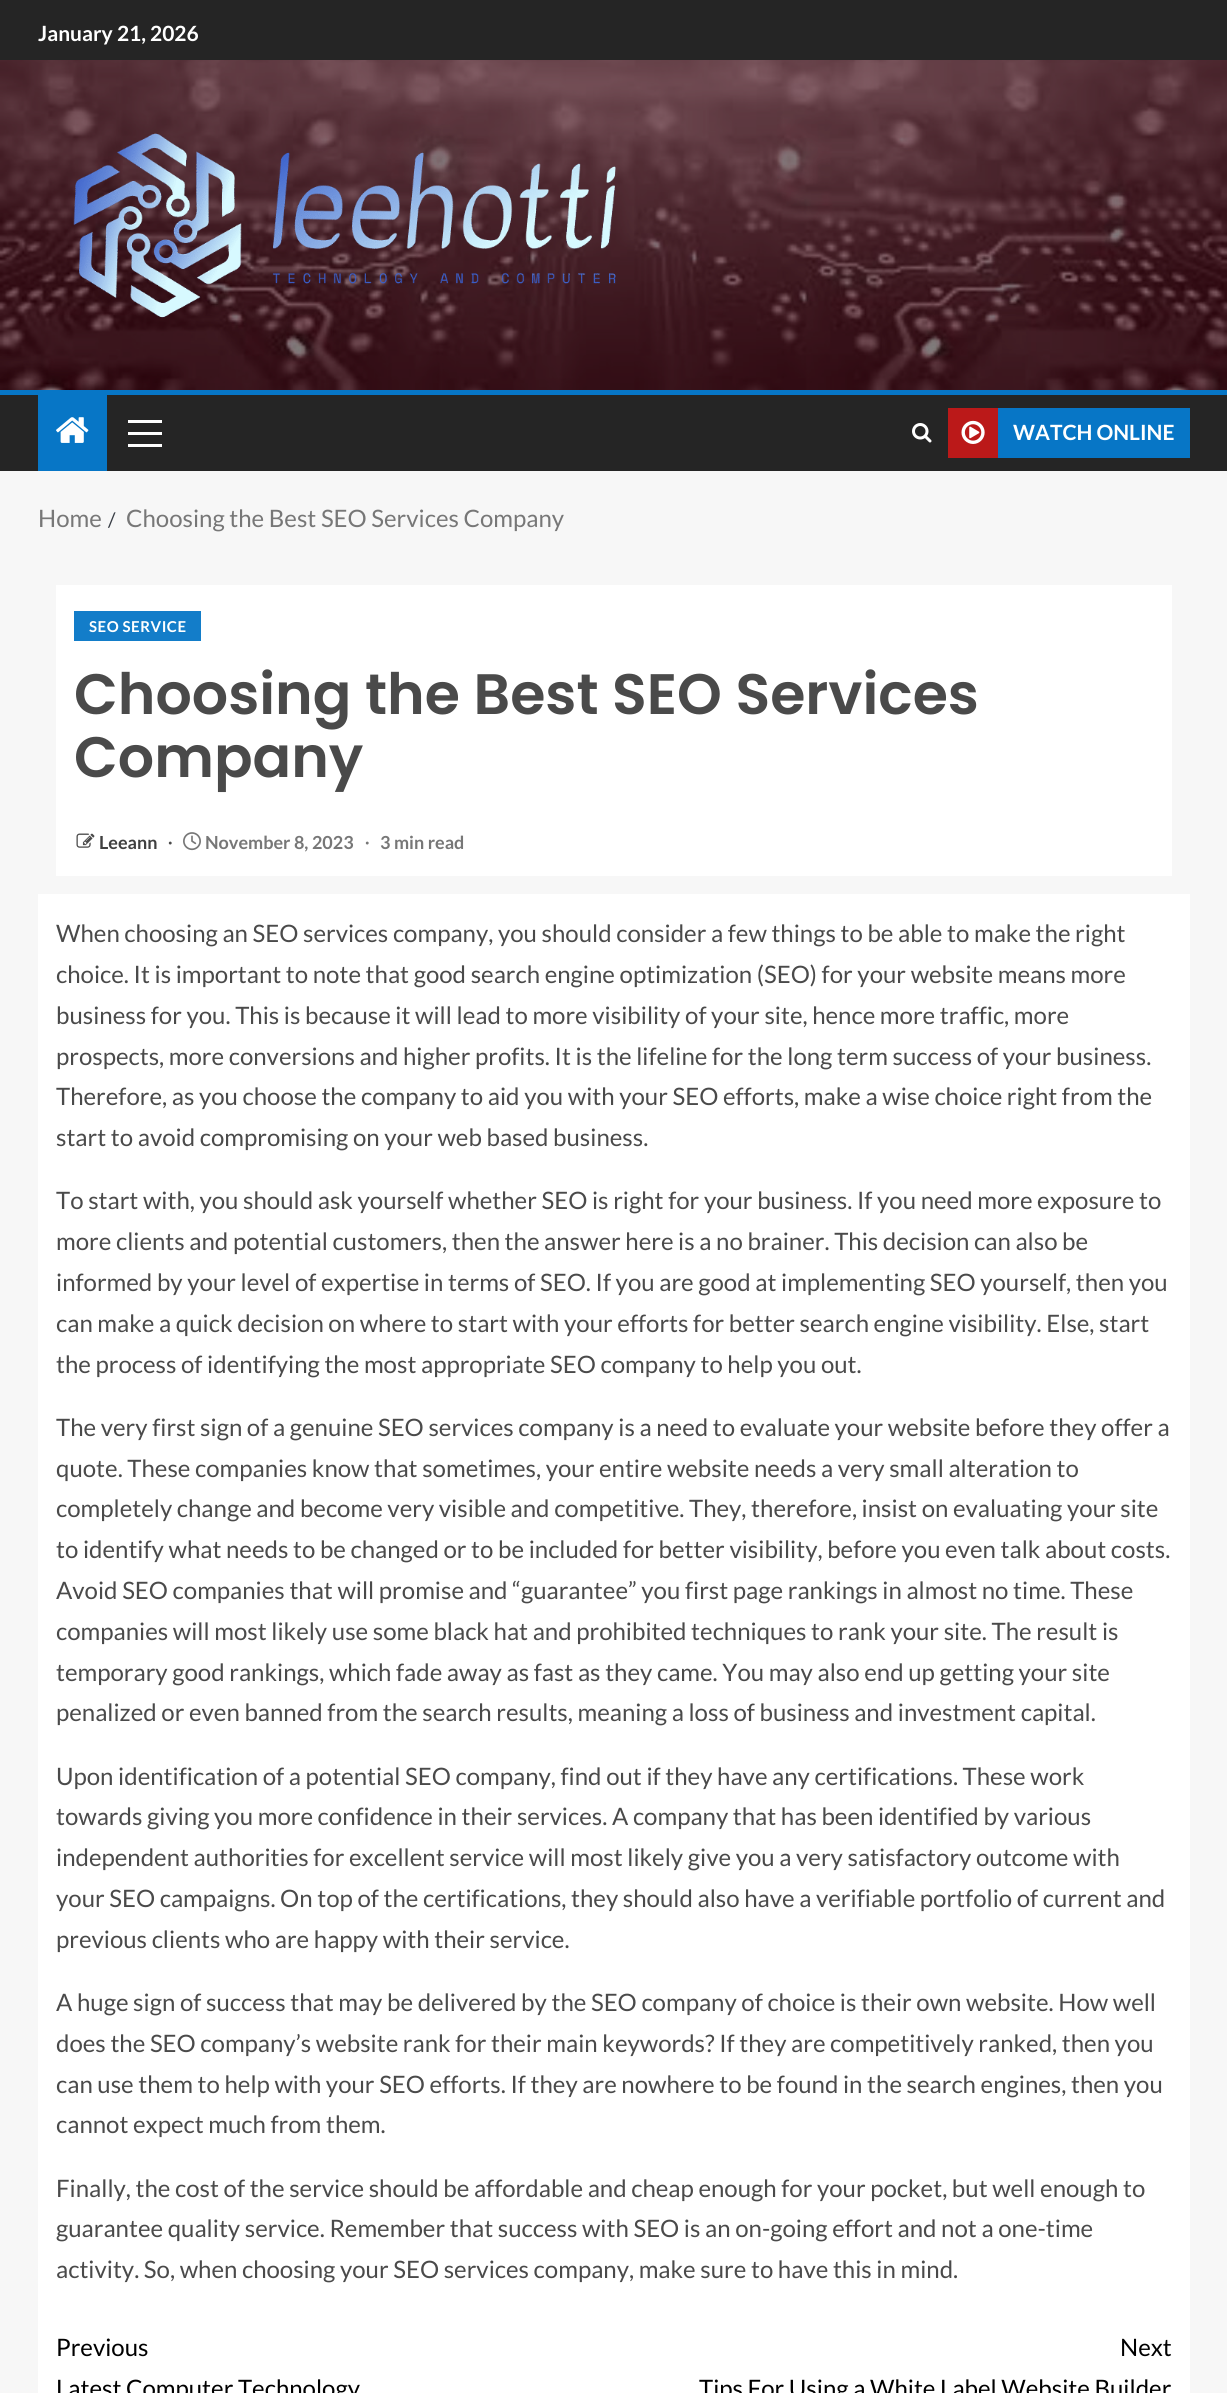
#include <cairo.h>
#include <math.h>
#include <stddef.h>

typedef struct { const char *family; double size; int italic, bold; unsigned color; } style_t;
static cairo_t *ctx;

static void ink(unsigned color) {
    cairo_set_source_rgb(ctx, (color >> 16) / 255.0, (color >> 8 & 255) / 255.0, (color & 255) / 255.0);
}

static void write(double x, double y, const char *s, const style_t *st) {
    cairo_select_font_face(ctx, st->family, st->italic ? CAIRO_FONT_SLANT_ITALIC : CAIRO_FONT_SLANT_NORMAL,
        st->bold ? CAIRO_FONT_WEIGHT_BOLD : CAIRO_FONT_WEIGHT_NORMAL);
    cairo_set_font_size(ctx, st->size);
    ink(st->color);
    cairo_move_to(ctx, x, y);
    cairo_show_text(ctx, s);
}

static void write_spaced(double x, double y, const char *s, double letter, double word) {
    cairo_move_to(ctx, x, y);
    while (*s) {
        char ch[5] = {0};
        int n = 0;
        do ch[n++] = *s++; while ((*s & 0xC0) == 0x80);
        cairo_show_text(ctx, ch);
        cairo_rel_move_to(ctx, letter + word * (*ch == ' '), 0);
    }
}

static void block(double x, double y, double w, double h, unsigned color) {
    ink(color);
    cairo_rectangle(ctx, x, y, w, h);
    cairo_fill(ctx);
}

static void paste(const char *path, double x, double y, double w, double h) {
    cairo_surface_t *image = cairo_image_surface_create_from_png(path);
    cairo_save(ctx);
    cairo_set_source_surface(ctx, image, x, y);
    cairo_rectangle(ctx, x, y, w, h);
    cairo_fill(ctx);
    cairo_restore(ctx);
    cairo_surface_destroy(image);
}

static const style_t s1 = {"Lato", 21, 0, 1, 0xffffff};
static const style_t s2 = {"Lato", 24, 0, 0, 0x777777};
static const style_t s3 = {"Lato", 20, 0, 0, 0x393e46};
static const style_t s4 = {"Poppins SemiBold", 57, 0, 0, 0x4a4a4a};
static const style_t s5 = {"Lato", 18, 0, 1, 0x404040};
static const style_t s6 = {"Liberation Serif", 18, 0, 1, 0x4a4a4a};
static const style_t s7 = {"Lato", 18, 0, 1, 0x777777};
static const style_t s8 = {"Liberation Serif", 18, 0, 1, 0x777777};
static const style_t s9 = {"Lato", 24, 0, 0, 0x4a4a4a};
static const style_t s10 = {"Lato", 24, 0, 0, 0x000000};

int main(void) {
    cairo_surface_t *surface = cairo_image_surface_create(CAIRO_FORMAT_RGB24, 1227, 2393);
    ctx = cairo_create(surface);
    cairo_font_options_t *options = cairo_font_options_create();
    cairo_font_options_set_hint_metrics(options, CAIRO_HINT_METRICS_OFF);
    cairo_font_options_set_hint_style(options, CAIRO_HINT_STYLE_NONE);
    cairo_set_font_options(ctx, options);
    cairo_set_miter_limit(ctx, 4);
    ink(0xf7f7f7);
    cairo_paint(ctx);
    block(0, 0, 1227, 60, 0x252525);
    write(38, 41, "January 21, 2026", &s1);
    paste("pic1.png", 0, 60, 1227, 330);
    paste("pic2.png", 73, 133, 543, 185);
    block(0, 395, 1227, 76, 0x252525);
    block(0, 390, 1227, 5, 0x0776c6);
    block(38, 395, 69, 76, 0x0776c6);
    paste("pic3.png", 56, 417, 33, 26);
    block(128, 432, 34, 3, 0xffffff);
    block(128, 420, 34, 3, 0xffffff);
    block(128, 444, 34, 3, 0xffffff);
    paste("pic4.png", 912, 423, 20, 20);
    block(948, 408, 50, 50, 0xbb1919);
    paste("pic5.png", 961, 420, 24, 24);
    block(998, 408, 192, 50, 0x0776c6);
    write(1013, 440, "WATCH ONLINE", &s1);
    write(38, 527, "Home", &s2);
    write(108, 527, "/", &s3);
    write(126, 527, "Choosing the Best SEO Services Company", &s2);
    block(56, 585, 1116, 291, 0xffffff);
    block(74, 611, 127, 30, 0x137dc9);
    cairo_select_font_face(ctx, "Lato", CAIRO_FONT_SLANT_NORMAL, CAIRO_FONT_WEIGHT_BOLD);
    cairo_set_font_size(ctx, 15);
    ink(0xffffff);
    write_spaced(89, 632, "SEO SERVICE", 0.5, 0);
    write(74, 714, "Choosing the Best SEO Services", &s4);
    write(74, 777, "Company", &s4);
    paste("pic6.png", 76, 833, 19, 15);
    write(99, 849, "Leeann", &s5);
    write(168, 849, "∙", &s6);
    paste("pic7.png", 183, 832, 18, 19);
    write(205, 849, "November 8, 2023", &s7);
    write(365, 849, "∙", &s8);
    write(380, 849, "3 min read", &s7);
    block(38, 894, 1152, 1499, 0xffffff);
    write(56, 942, "When choosing an SEO services company, you should consider a few things to be able to make the right", &s9);
    write(56, 983, "choice. It is important to note that good search engine optimization (SEO) for your website means more", &s9);
    write(56, 1024, "business for you. This is because it will lead to more visibility of your site, hence more traffic, more", &s9);
    write(56, 1065, "prospects, more conversions and higher profits. It is the lifeline for the long term success of your business.", &s9);
    write(56, 1105, "Therefore, as you choose the company to aid you with your SEO efforts, make a wise choice right from the", &s9);
    write(56, 1146, "start to avoid compromising on your web based business.", &s9);
    write(56, 1209, "To start with, you should ask yourself whether SEO is right for your business. If you need more exposure to", &s9);
    write(56, 1250, "more clients and potential customers, then the answer here is a no brainer. This decision can also be", &s9);
    write(56, 1291, "informed by your level of expertise in terms of SEO. If you are good at implementing SEO yourself, then you", &s9);
    write(56, 1332, "can make a quick decision on where to start with your efforts for better search engine visibility. Else, start", &s9);
    write(56, 1373, "the process of identifying the most appropriate SEO company to help you out.", &s9);
    write(56, 1436, "The very first sign of a genuine SEO services company is a need to evaluate your website before they offer a", &s9);
    write(56, 1477, "quote. These companies know that sometimes, your entire website needs a very small alteration to", &s9);
    write(56, 1517, "completely change and become very visible and competitive. They, therefore, insist on evaluating your site", &s9);
    write(56, 1558, "to identify what needs to be changed or to be included for better visibility, before you even talk about costs.", &s9);
    write(56, 1599, "Avoid SEO companies that will promise and “guarantee” you first page rankings in almost no time. These", &s9);
    write(56, 1640, "companies will most likely use some black hat and prohibited techniques to rank your site. The result is", &s9);
    write(56, 1681, "temporary good rankings, which fade away as fast as they came. You may also end up getting your site", &s9);
    write(56, 1721, "penalized or even banned from the search results, meaning a loss of business and investment capital.", &s9);
    write(56, 1785, "Upon identification of a potential SEO company, find out if they have any certifications. These work", &s9);
    write(56, 1825, "towards giving you more confidence in their services. A company that has been identified by various", &s9);
    write(56, 1866, "independent authorities for excellent service will most likely give you a very satisfactory outcome with", &s9);
    write(56, 1907, "your SEO campaigns. On top of the certifications, they should also have a verifiable portfolio of current and", &s9);
    write(56, 1948, "previous clients who are happy with their service.", &s9);
    write(56, 2011, "A huge sign of success that may be delivered by the SEO company of choice is their own website. How well", &s9);
    write(56, 2052, "does the SEO company’s website rank for their main keywords? If they are competitively ranked, then you", &s9);
    write(56, 2093, "can use them to help with your SEO efforts. If they are nowhere to be found in the search engines, then you", &s9);
    write(56, 2133, "cannot expect much from them.", &s9);
    write(56, 2197, "Finally, the cost of the service should be affordable and cheap enough for your pocket, but well enough to", &s9);
    write(56, 2237, "guarantee quality service. Remember that success with SEO is an on-going effort and not a one-time", &s9);
    write(56, 2278, "activity. So, when choosing your SEO services company, make sure to have this in mind.", &s9);
    write(56, 2356, "Previous", &s10);
    write(56, 2397, "Latest Computer Technology", &s10);
    write(1120, 2356, "Next", &s10);
    write(699, 2397, "Tips For Using a White Label Website Builder", &s10);
    cairo_surface_write_to_png(surface, "screenshot.png");
    cairo_font_options_destroy(options);
    cairo_destroy(ctx);
    cairo_surface_destroy(surface);
    return 0;
}
